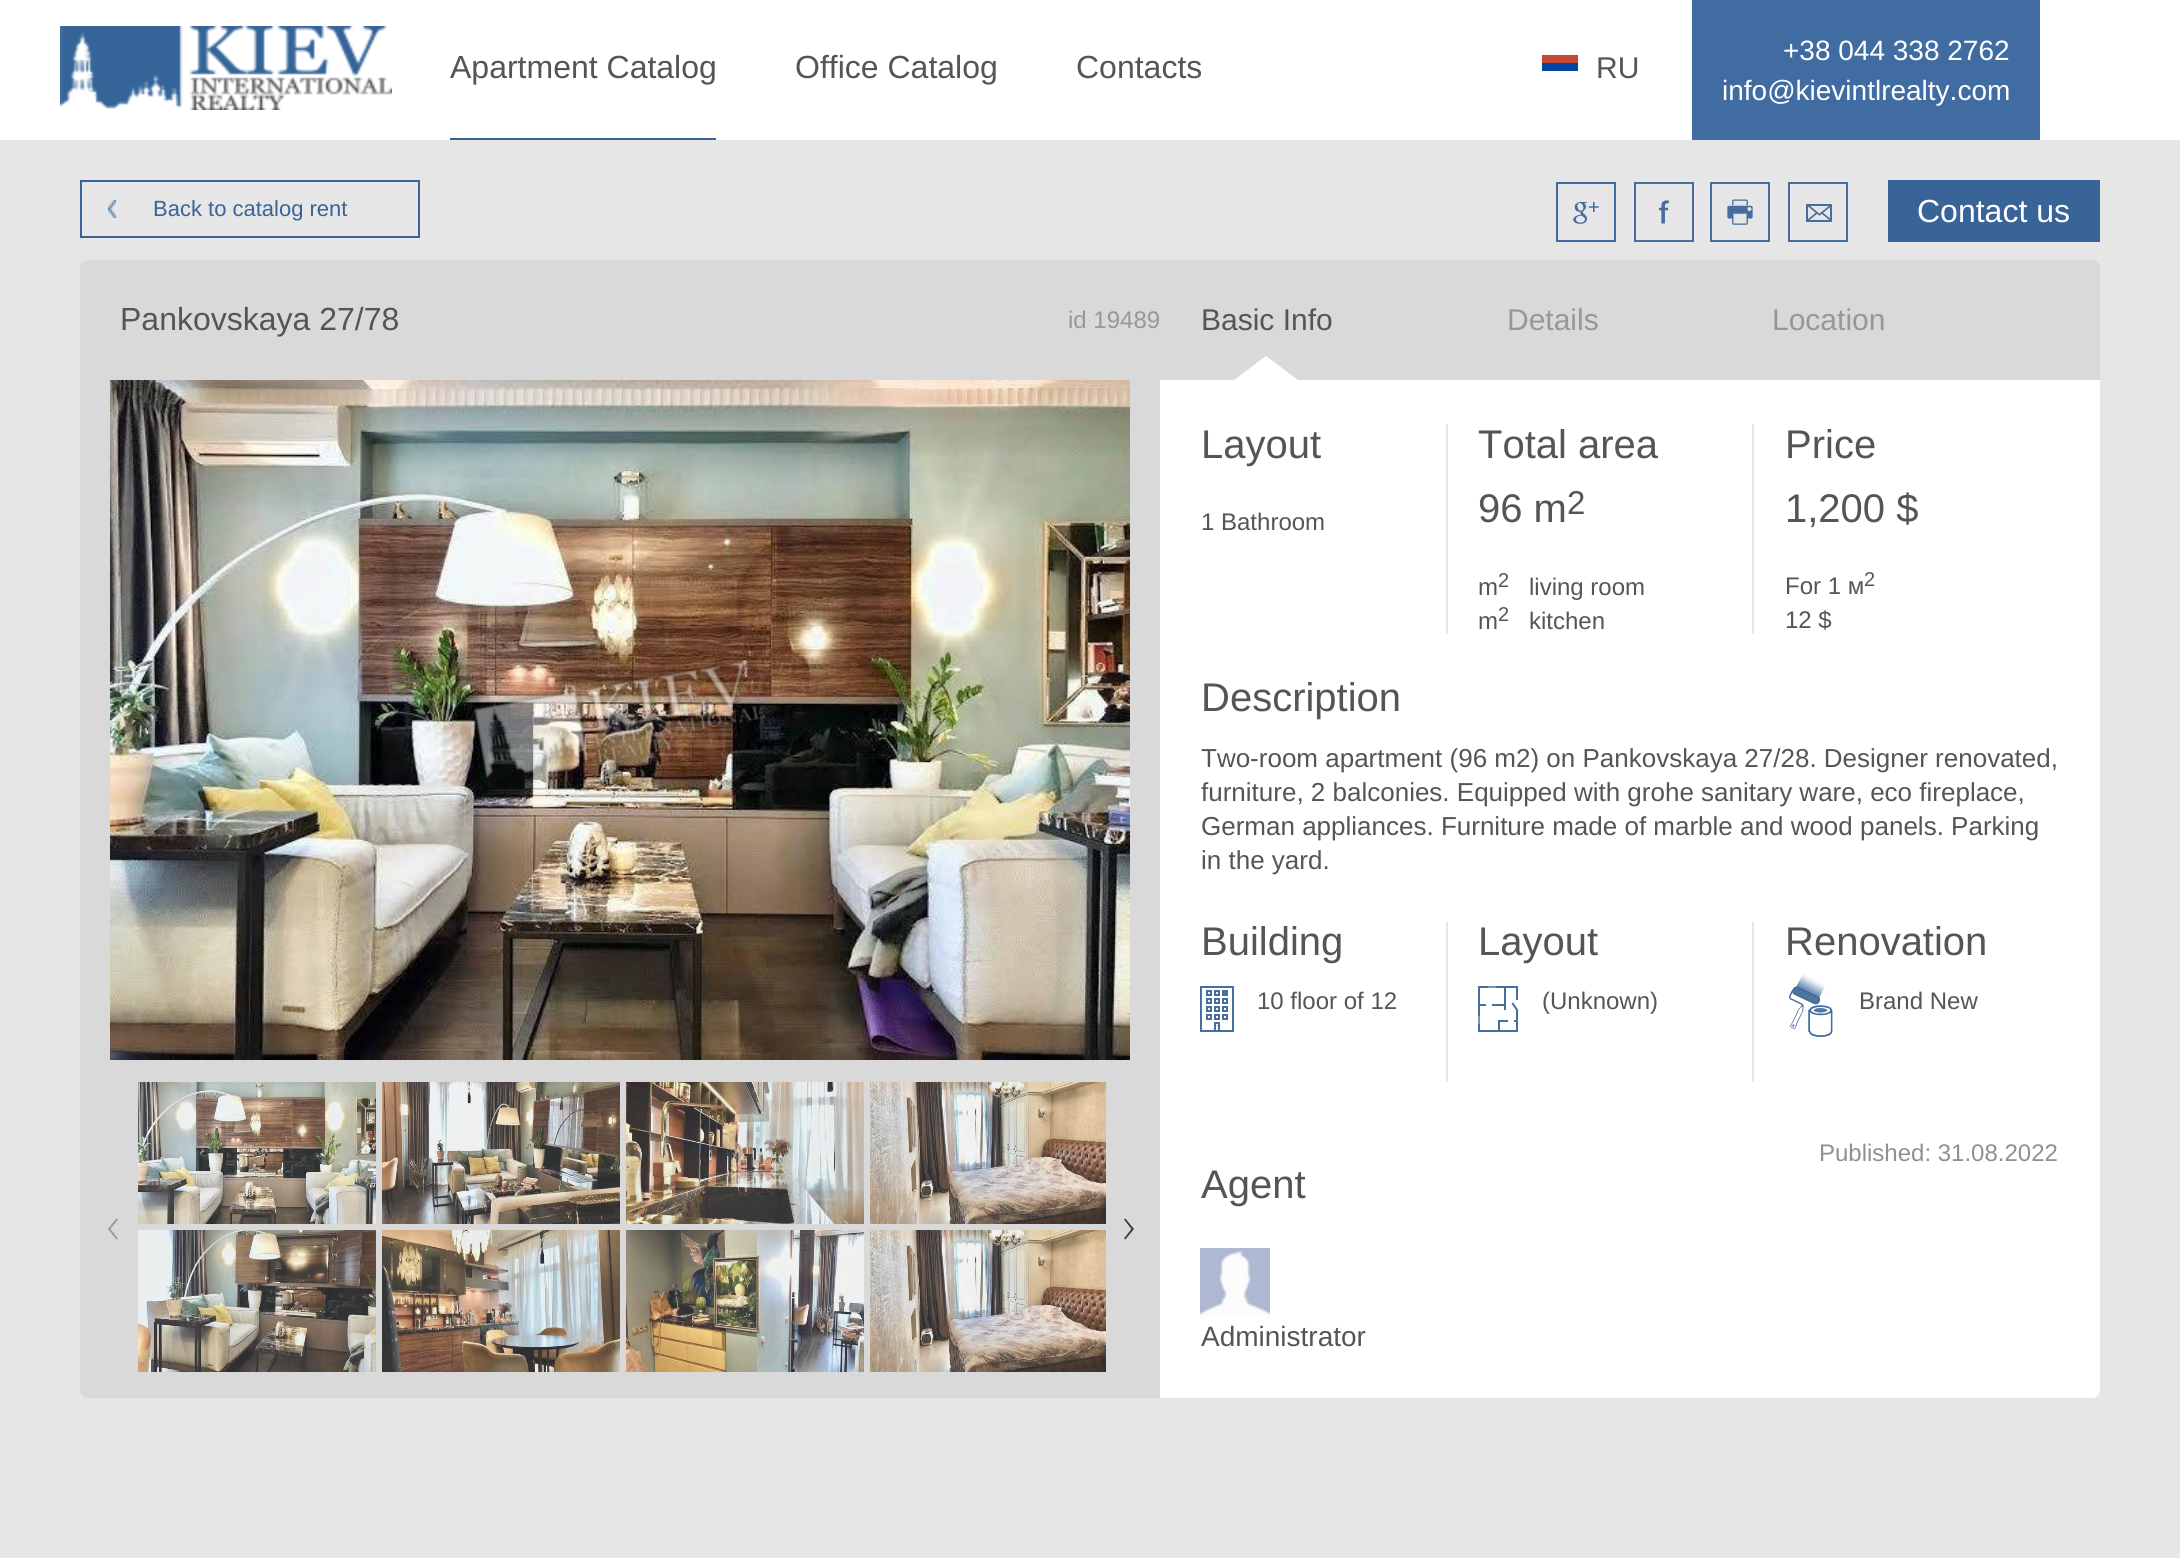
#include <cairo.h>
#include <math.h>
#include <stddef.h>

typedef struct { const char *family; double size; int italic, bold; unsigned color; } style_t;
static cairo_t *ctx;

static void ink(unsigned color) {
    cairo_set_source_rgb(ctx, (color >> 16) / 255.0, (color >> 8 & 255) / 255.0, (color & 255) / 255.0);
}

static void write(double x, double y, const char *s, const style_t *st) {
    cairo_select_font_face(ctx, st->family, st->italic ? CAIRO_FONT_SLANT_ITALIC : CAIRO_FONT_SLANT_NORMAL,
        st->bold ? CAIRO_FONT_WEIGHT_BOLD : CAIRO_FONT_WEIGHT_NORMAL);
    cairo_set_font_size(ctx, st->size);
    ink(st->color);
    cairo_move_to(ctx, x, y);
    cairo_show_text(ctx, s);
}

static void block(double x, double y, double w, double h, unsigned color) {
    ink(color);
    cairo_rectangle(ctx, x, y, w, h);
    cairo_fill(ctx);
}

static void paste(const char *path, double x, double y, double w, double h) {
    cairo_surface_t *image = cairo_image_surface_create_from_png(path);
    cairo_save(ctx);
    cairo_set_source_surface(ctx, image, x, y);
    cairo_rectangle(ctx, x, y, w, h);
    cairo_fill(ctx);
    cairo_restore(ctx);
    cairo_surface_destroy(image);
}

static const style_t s1 = {"Liberation Sans", 32, 0, 0, 0x555557};
static const style_t s2 = {"Liberation Sans", 30, 0, 0, 0x555557};
static const style_t s3 = {"Liberation Sans", 28, 0, 0, 0xffffff};
static const style_t s4 = {"Liberation Sans", 22, 0, 0, 0x386498};
static const style_t s5 = {"Liberation Sans", 32, 0, 0, 0xffffff};
static const style_t s6 = {"Liberation Sans", 24, 0, 0, 0x979798};
static const style_t s7 = {"Liberation Sans", 30, 0, 0, 0x979798};
static const style_t s8 = {"Liberation Sans", 40, 0, 0, 0x555557};
static const style_t s9 = {"Liberation Sans", 24, 0, 0, 0x555557};
static const style_t s10 = {"Liberation Sans", 33, 0, 0, 0x555557};
static const style_t s11 = {"Liberation Sans", 20, 0, 0, 0x555557};
static const style_t s12 = {"Liberation Sans", 26, 0, 0, 0x555557};
static const style_t s13 = {"Liberation Sans", 24, 0, 0, 0x909092};
static const style_t s14 = {"Liberation Sans", 28, 0, 0, 0x555557};

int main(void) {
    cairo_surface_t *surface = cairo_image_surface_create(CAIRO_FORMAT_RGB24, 2180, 1558);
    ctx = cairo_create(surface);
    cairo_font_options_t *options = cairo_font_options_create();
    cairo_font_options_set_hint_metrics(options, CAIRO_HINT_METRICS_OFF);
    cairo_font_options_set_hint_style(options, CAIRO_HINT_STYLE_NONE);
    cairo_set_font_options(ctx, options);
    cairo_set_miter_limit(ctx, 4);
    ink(0xe6e6e6);
    cairo_paint(ctx);
    block(0, 0, 2180, 140, 0xffffff);
    paste("pic1.png", 60, 26, 332, 84);
    block(450, 138, 266, 2, 0x386498);
    write(450, 78, "Apartment Catalog", &s1);
    write(795, 78, "Office Catalog", &s1);
    write(1076, 78, "Contacts", &s1);
    block(1542, 63, 36, 8, 0x0045a4);
    block(1542, 55, 36, 8, 0xc74732);
    write(1596, 78, "RU", &s2);
    block(1692, 0, 348, 140, 0x406ca1);
    write(1783, 60, "+38 044 338 2762", &s3);
    write(1722, 100, "info@kievintlrealty.com", &s3);
    cairo_rectangle(ctx, 81, 181, 338, 56);
    ink(0x386498);
    cairo_stroke(ctx);
    paste("pic2.png", 108, 200, 8, 18);
    write(153, 216, "Back to catalog rent", &s4);
    paste("pic3.png", 1556, 182, 60, 60);
    paste("pic4.png", 1634, 182, 60, 60);
    paste("pic5.png", 1710, 182, 60, 60);
    paste("pic6.png", 1788, 182, 60, 60);
    block(1888, 180, 212, 62, 0x386498);
    write(1917, 222, "Contact us", &s5);
    ink(0xd9d9d9);
    cairo_new_path(ctx);
    cairo_move_to(ctx, 88, 260);
    cairo_line_to(ctx, 2092, 260);
    cairo_curve_to(ctx, 2096.5, 260, 2100, 263.5, 2100, 268);
    cairo_line_to(ctx, 2100, 380);
    cairo_line_to(ctx, 80, 380);
    cairo_line_to(ctx, 80, 268);
    cairo_curve_to(ctx, 80, 263.5, 83.5, 260, 88, 260);
    cairo_close_path(ctx);
    cairo_fill(ctx);
    write(120, 330, "Pankovskaya 27/78", &s1);
    write(1068, 328, "id 19489", &s6);
    write(1201, 330, "Basic Info", &s2);
    ink(0xffffff);
    cairo_new_path(ctx);
    cairo_move_to(ctx, 1298, 380);
    cairo_line_to(ctx, 1234, 380);
    cairo_line_to(ctx, 1266, 356);
    cairo_close_path(ctx);
    cairo_fill(ctx);
    write(1507, 330, "Details", &s7);
    write(1772, 330, "Location", &s7);
    ink(0xd9d9d9);
    cairo_new_path(ctx);
    cairo_move_to(ctx, 80, 380);
    cairo_line_to(ctx, 1160, 380);
    cairo_line_to(ctx, 1160, 1398);
    cairo_line_to(ctx, 88, 1398);
    cairo_curve_to(ctx, 83.5, 1398, 80, 1394.5, 80, 1390);
    cairo_close_path(ctx);
    cairo_fill(ctx);
    paste("pic7.png", 110, 380, 1020, 680);
    paste("pic8.png", 108, 1218, 10, 22);
    paste("pic9.png", 138, 1082, 238, 142);
    paste("pic10.png", 138, 1230, 238, 142);
    paste("pic11.png", 382, 1082, 238, 142);
    paste("pic12.png", 382, 1230, 238, 142);
    paste("pic13.png", 626, 1082, 238, 142);
    paste("pic14.png", 626, 1230, 238, 142);
    paste("pic15.png", 870, 1082, 236, 142);
    paste("pic16.png", 870, 1230, 236, 142);
    paste("pic17.png", 1124, 1218, 10, 22);
    ink(0xffffff);
    cairo_new_path(ctx);
    cairo_move_to(ctx, 1160, 380);
    cairo_line_to(ctx, 2100, 380);
    cairo_line_to(ctx, 2100, 1390);
    cairo_curve_to(ctx, 2100, 1394.5, 2096.5, 1398, 2092, 1398);
    cairo_line_to(ctx, 1160, 1398);
    cairo_close_path(ctx);
    cairo_fill(ctx);
    write(1201, 458, "Layout", &s8);
    write(1201, 530, "1 Bathroom", &s9);
    block(1752, 424, 2, 210, 0xe6e6e6);
    block(1446, 424, 2, 210, 0xe6e6e6);
    write(1478, 458, "Total area", &s8);
    write(1478, 522, "96 m", &s8);
    write(1567, 514, "2", &s10);
    write(1478, 595, "m", &s9);
    write(1498, 587, "2", &s11);
    write(1529, 595, "living room", &s9);
    write(1478, 629, "m", &s9);
    write(1498, 621, "2", &s11);
    write(1529, 629, "kitchen", &s9);
    write(1785, 458, "Price", &s8);
    write(1785, 522, "1,200 $", &s8);
    write(1785, 594, "For 1 м", &s9);
    write(1864, 586, "2", &s11);
    write(1785, 628, "12 $", &s9);
    write(1201, 711, "Description", &s8);
    write(1201, 767, "Two-room apartment (96 m2) on Pankovskaya 27/28. Designer renovated,", &s12);
    write(1201, 801, "furniture, 2 balconies. Equipped with grohe sanitary ware, eco fireplace,", &s12);
    write(1201, 835, "German appliances. Furniture made of marble and wood panels. Parking", &s12);
    write(1201, 869, "in the yard.", &s12);
    write(1201, 955, "Building", &s8);
    paste("pic18.png", 1200, 986, 34, 46);
    write(1257, 1009, "10 floor of 12", &s9);
    block(1752, 922, 2, 160, 0xe6e6e6);
    block(1446, 922, 2, 160, 0xe6e6e6);
    write(1478, 955, "Layout", &s8);
    paste("pic19.png", 1478, 986, 40, 46);
    write(1542, 1009, "(Unknown)", &s9);
    write(1785, 955, "Renovation", &s8);
    paste("pic20.png", 1789, 973, 44, 64);
    write(1859, 1009, "Brand New", &s9);
    write(1819, 1161, "Published: 31.08.2022", &s13);
    write(1201, 1198, "Agent", &s8);
    paste("pic21.png", 1200, 1248, 70, 70);
    write(1201, 1346, "Administrator", &s14);
    cairo_surface_write_to_png(surface, "screenshot.png");
    cairo_font_options_destroy(options);
    cairo_destroy(ctx);
    cairo_surface_destroy(surface);
    return 0;
}
